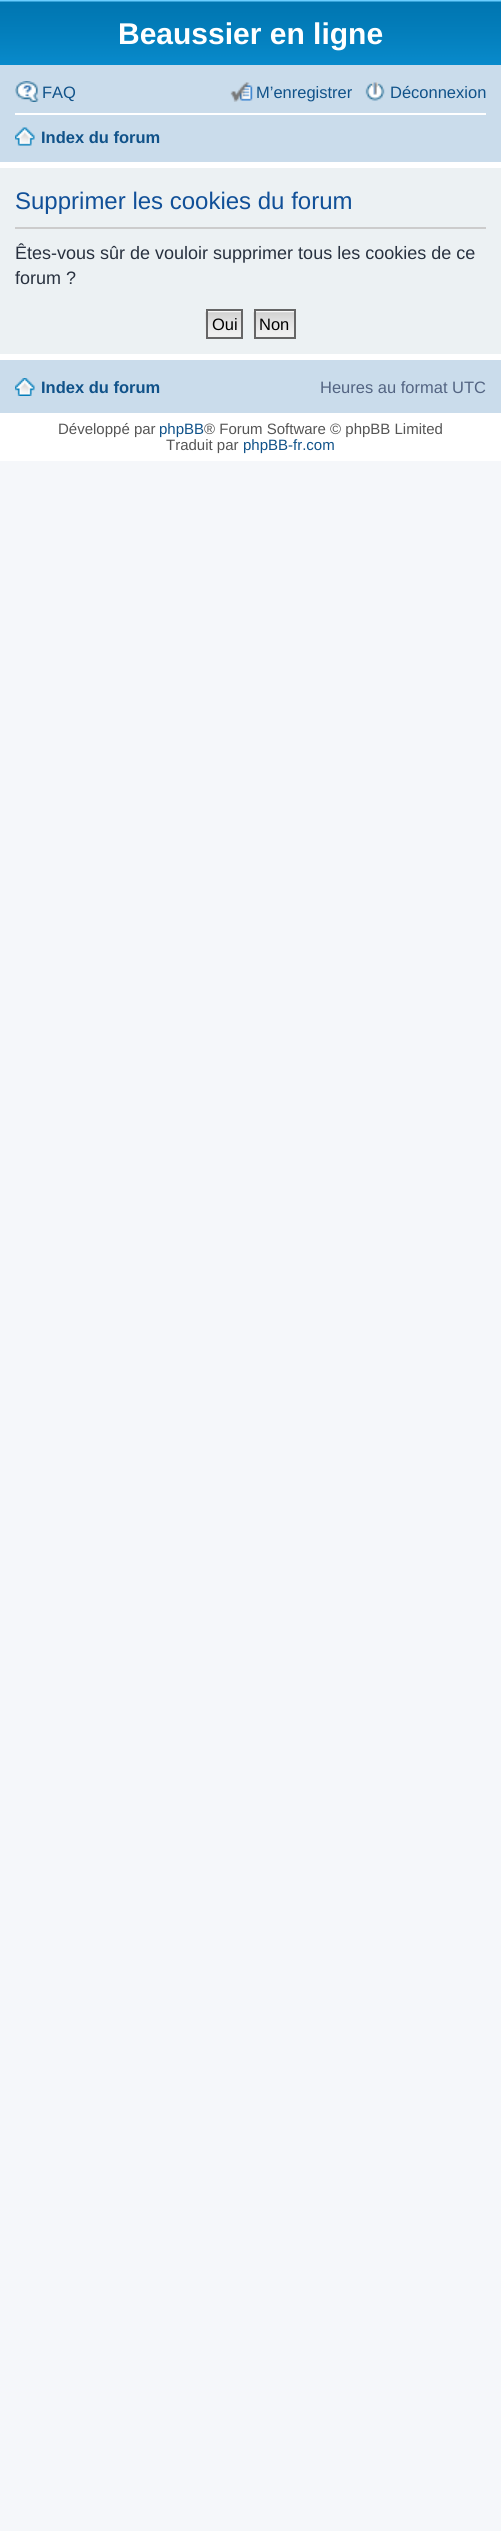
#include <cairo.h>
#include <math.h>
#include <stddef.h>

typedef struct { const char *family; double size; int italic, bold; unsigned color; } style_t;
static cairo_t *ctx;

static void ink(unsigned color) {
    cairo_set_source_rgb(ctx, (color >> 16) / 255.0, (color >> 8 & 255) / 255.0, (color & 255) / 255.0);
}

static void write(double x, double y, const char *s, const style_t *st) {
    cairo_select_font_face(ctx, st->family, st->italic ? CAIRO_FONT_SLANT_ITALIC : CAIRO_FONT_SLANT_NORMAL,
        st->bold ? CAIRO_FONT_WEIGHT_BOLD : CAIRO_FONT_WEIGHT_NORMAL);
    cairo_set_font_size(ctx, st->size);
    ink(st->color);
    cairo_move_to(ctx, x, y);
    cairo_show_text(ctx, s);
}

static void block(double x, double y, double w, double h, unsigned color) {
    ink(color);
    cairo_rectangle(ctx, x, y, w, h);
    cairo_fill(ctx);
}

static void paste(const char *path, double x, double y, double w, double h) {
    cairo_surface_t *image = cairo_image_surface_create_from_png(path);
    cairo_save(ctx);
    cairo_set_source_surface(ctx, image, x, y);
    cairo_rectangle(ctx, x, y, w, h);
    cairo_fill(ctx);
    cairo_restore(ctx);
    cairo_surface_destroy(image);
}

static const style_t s1 = {"Liberation Sans", 30, 0, 1, 0xffffff};
static const style_t s2 = {"Liberation Sans", 16.5, 0, 0, 0x105289};
static const style_t s3 = {"Liberation Sans", 16.5, 0, 1, 0x105289};
static const style_t s4 = {"Liberation Sans", 24, 0, 0, 0x115098};
static const style_t s5 = {"Liberation Sans", 18, 0, 0, 0x28313f};
static const style_t s6 = {"Liberation Sans", 16.5, 0, 0, 0x000000};
static const style_t s7 = {"Liberation Sans", 16.5, 0, 0, 0x536482};
static const style_t s8 = {"Liberation Sans", 15, 0, 0, 0x555555};
static const style_t s9 = {"Liberation Sans", 15, 0, 0, 0x105289};

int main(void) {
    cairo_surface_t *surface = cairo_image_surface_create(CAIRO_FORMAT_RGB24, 501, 2531);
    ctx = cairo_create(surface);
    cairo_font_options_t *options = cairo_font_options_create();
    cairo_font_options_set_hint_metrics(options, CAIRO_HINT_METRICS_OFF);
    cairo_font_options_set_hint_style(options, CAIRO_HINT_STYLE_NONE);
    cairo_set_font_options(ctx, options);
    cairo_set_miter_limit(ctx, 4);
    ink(0xf5f7fa);
    cairo_paint(ctx);
    block(0, 162, 501, 299, 0xffffff);
    paste("pic1.png", 0, 0, 501, 65);
    write(118, 44, "Beaussier en ligne", &s1);
    block(0, 65, 501, 97, 0xcadceb);
    paste("pic2.png", 15, 81, 24, 21);
    write(42, 98, "FAQ", &s2);
    paste("pic3.png", 230, 82, 23, 20);
    write(256, 98, "M’enregistrer", &s2);
    paste("pic4.png", 365, 82, 20, 19);
    write(390, 98, "Déconnexion", &s2);
    block(15, 113, 471, 2, 0xffffff);
    paste("pic5.png", 15, 127, 20, 19);
    write(41, 143, "Index du forum", &s3);
    block(0, 168, 501, 186, 0xecf1f3);
    block(15, 227, 471, 2, 0xcccccc);
    write(15, 209, "Supprimer les cookies du forum", &s4);
    write(15, 259, "Êtes-vous sûr de vouloir supprimer tous les cookies de ce", &s5);
    write(15, 284, "forum ?", &s5);
    paste("pic6.png", 205, 310, 36, 29);
    cairo_rectangle(ctx, 207, 310, 35, 28);
    ink(0x666666);
    cairo_stroke(ctx);
    write(212, 330, "Oui", &s6);
    paste("pic7.png", 253, 310, 41, 29);
    cairo_rectangle(ctx, 255, 310, 40, 28);
    ink(0x666666);
    cairo_stroke(ctx);
    write(259, 330, "Non", &s6);
    block(0, 360, 501, 53, 0xcadceb);
    paste("pic8.png", 15, 378, 20, 18);
    write(41, 393, "Index du forum", &s3);
    write(320, 393, "Heures au format UTC", &s7);
    write(58, 434, "Développé par", &s8);
    write(159, 434, "phpBB", &s9);
    write(204, 434, "® Forum Software © phpBB Limited", &s8);
    write(166, 450, "Traduit par", &s8);
    write(243, 450, "phpBB-fr.com", &s9);
    cairo_surface_write_to_png(surface, "screenshot.png");
    cairo_font_options_destroy(options);
    cairo_destroy(ctx);
    cairo_surface_destroy(surface);
    return 0;
}
